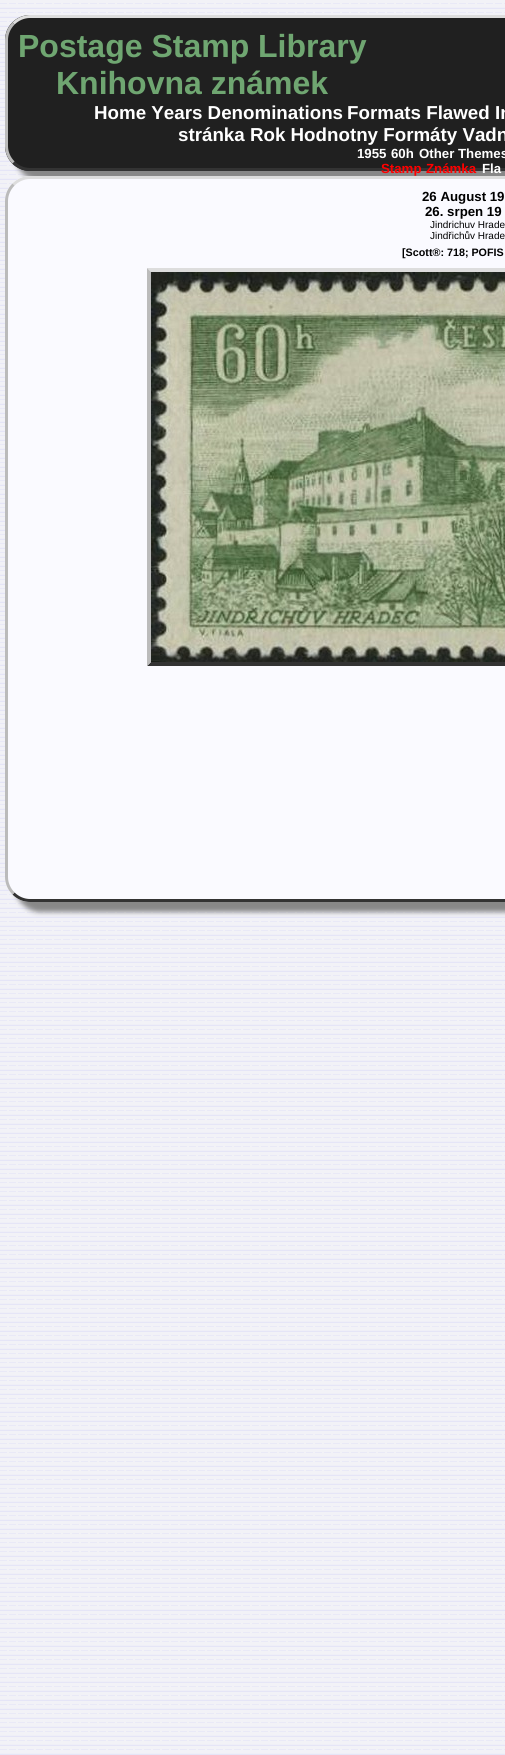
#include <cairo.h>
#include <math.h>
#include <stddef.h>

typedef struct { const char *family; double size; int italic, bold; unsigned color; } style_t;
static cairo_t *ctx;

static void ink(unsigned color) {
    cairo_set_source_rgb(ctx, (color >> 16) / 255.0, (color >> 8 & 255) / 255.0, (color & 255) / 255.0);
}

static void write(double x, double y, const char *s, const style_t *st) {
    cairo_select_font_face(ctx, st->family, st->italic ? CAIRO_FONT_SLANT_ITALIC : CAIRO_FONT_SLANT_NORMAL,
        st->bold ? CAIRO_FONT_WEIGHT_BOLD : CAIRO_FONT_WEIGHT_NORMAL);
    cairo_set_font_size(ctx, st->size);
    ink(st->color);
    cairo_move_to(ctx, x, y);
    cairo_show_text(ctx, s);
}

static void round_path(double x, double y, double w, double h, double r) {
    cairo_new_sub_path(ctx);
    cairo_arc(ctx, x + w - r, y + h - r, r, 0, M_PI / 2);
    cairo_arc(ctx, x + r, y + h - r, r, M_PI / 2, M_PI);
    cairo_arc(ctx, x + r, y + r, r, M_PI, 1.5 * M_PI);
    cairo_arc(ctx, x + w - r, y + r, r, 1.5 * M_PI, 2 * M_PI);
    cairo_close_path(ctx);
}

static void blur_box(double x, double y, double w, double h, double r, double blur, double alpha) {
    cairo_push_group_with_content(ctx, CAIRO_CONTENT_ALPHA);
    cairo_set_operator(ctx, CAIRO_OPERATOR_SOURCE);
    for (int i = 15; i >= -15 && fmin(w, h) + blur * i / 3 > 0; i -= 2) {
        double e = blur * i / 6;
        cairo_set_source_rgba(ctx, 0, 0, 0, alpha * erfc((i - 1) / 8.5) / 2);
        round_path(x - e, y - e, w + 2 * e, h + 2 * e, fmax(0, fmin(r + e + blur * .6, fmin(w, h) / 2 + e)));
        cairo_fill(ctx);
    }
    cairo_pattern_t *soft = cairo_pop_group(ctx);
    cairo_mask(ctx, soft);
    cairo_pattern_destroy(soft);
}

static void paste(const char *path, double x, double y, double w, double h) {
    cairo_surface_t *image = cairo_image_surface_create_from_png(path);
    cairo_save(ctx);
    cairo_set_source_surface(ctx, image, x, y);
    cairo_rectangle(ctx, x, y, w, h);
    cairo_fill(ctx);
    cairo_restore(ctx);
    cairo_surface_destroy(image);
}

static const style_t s1 = {"Liberation Sans", 32, 0, 1, 0x6fa671};
static const style_t s2 = {"Liberation Sans", 18.75, 0, 1, 0xffffff};
static const style_t s3 = {"Liberation Sans", 13.25, 0, 1, 0xffffff};
static const style_t s4 = {"Liberation Sans", 13.25, 0, 1, 0xff0000};
static const style_t s5 = {"Liberation Sans", 13.25, 0, 1, 0x000000};
static const style_t s6 = {"Liberation Sans", 10, 0, 0, 0x000000};
static const style_t s7 = {"Liberation Sans", 10.75, 0, 1, 0x000000};

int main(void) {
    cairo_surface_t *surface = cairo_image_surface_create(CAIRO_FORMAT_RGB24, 505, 1755);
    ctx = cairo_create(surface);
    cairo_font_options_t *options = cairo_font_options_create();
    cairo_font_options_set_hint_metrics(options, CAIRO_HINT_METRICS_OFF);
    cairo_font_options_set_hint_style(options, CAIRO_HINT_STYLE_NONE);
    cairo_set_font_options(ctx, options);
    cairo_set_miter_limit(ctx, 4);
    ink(0xffffff);
    cairo_paint(ctx);
    paste("pic1.png", 0, 0, 505, 1755);
    ink(0x888888);
    blur_box(15, 25, 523, 156, 25, 2.5, 1);
    ink(0x202020);
    round_path(5, 15, 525, 156, 25);
    cairo_fill(ctx);
    cairo_new_path(ctx);
    cairo_move_to(ctx, 13.5, 23.5);
    cairo_curve_to(ctx, 18, 19, 24, 16.5, 30, 16.5);
    cairo_line_to(ctx, 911, 16.5);
    cairo_curve_to(ctx, 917, 16.5, 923, 19, 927.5, 23.5);
    ink(0xdddddd);
    cairo_set_line_width(ctx, 3);
    cairo_stroke(ctx);
    cairo_new_path(ctx);
    cairo_move_to(ctx, 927.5, 162.5);
    cairo_curve_to(ctx, 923, 167, 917, 169.5, 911, 169.5);
    cairo_line_to(ctx, 30, 169.5);
    cairo_curve_to(ctx, 24, 169.5, 18, 167, 13.5, 162.5);
    ink(0x333333);
    cairo_stroke(ctx);
    cairo_new_path(ctx);
    cairo_move_to(ctx, 13.5, 162.5);
    cairo_curve_to(ctx, 9, 158, 6.5, 152, 6.5, 146);
    cairo_line_to(ctx, 6.5, 40);
    cairo_curve_to(ctx, 6.5, 34, 9, 28, 13.5, 23.5);
    ink(0xbbbbbb);
    cairo_stroke(ctx);
    write(18, 57, "Postage Stamp Library", &s1);
    write(56, 94, "Knihovna známek", &s1);
    write(94, 119, "Home Years Denominations", &s2);
    write(347, 119, "Formats Flawed In", &s2);
    write(178, 141, "stránka Rok Hodnotny Formáty Vadn", &s2);
    write(357, 158, "1955", &s3);
    write(391, 158, "60h", &s3);
    write(419, 158, "Other Themes", &s3);
    write(381, 173, "Stamp", &s4);
    write(426, 173, "Známka", &s4);
    write(482, 173, "Fla", &s3);
    ink(0x888888);
    blur_box(15, 186, 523, 726, 25, 2.5, 1);
    ink(0xfafaff);
    round_path(5, 176, 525, 726, 25);
    cairo_fill(ctx);
    cairo_new_path(ctx);
    cairo_move_to(ctx, 13.5, 184.5);
    cairo_curve_to(ctx, 18, 180, 24, 177.5, 30, 177.5);
    cairo_line_to(ctx, 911, 177.5);
    cairo_curve_to(ctx, 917, 177.5, 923, 180, 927.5, 184.5);
    ink(0xdddddd);
    cairo_stroke(ctx);
    cairo_new_path(ctx);
    cairo_move_to(ctx, 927.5, 893.5);
    cairo_curve_to(ctx, 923, 898, 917, 900.5, 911, 900.5);
    cairo_line_to(ctx, 30, 900.5);
    cairo_curve_to(ctx, 24, 900.5, 18, 898, 13.5, 893.5);
    ink(0x333333);
    cairo_stroke(ctx);
    cairo_new_path(ctx);
    cairo_move_to(ctx, 13.5, 893.5);
    cairo_curve_to(ctx, 9, 889, 6.5, 883, 6.5, 877);
    cairo_line_to(ctx, 6.5, 201);
    cairo_curve_to(ctx, 6.5, 195, 9, 189, 13.5, 184.5);
    ink(0xbbbbbb);
    cairo_stroke(ctx);
    write(422, 201, "26 August 19", &s5);
    write(425, 216, "26. srpen 19", &s5);
    write(430, 228, "Jindrichuv Hrade", &s6);
    write(430, 239, "Jindřichův Hrade", &s6);
    write(402, 256, "[Scott®: 718; POFIS", &s7);
    ink(0xdddddd);
    cairo_new_path(ctx);
    cairo_move_to(ctx, 147, 268);
    cairo_line_to(ctx, 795, 268);
    cairo_line_to(ctx, 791, 272);
    cairo_line_to(ctx, 151, 272);
    cairo_close_path(ctx);
    cairo_fill(ctx);
    ink(0x333333);
    cairo_new_path(ctx);
    cairo_move_to(ctx, 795, 666);
    cairo_line_to(ctx, 147, 666);
    cairo_line_to(ctx, 151, 662);
    cairo_line_to(ctx, 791, 662);
    cairo_close_path(ctx);
    cairo_fill(ctx);
    ink(0xbbbbbb);
    cairo_new_path(ctx);
    cairo_move_to(ctx, 147, 666);
    cairo_line_to(ctx, 147, 268);
    cairo_line_to(ctx, 151, 272);
    cairo_line_to(ctx, 151, 662);
    cairo_close_path(ctx);
    cairo_fill(ctx);
    paste("pic2.png", 151, 272, 354, 390);
    cairo_surface_write_to_png(surface, "screenshot.png");
    cairo_font_options_destroy(options);
    cairo_destroy(ctx);
    cairo_surface_destroy(surface);
    return 0;
}
